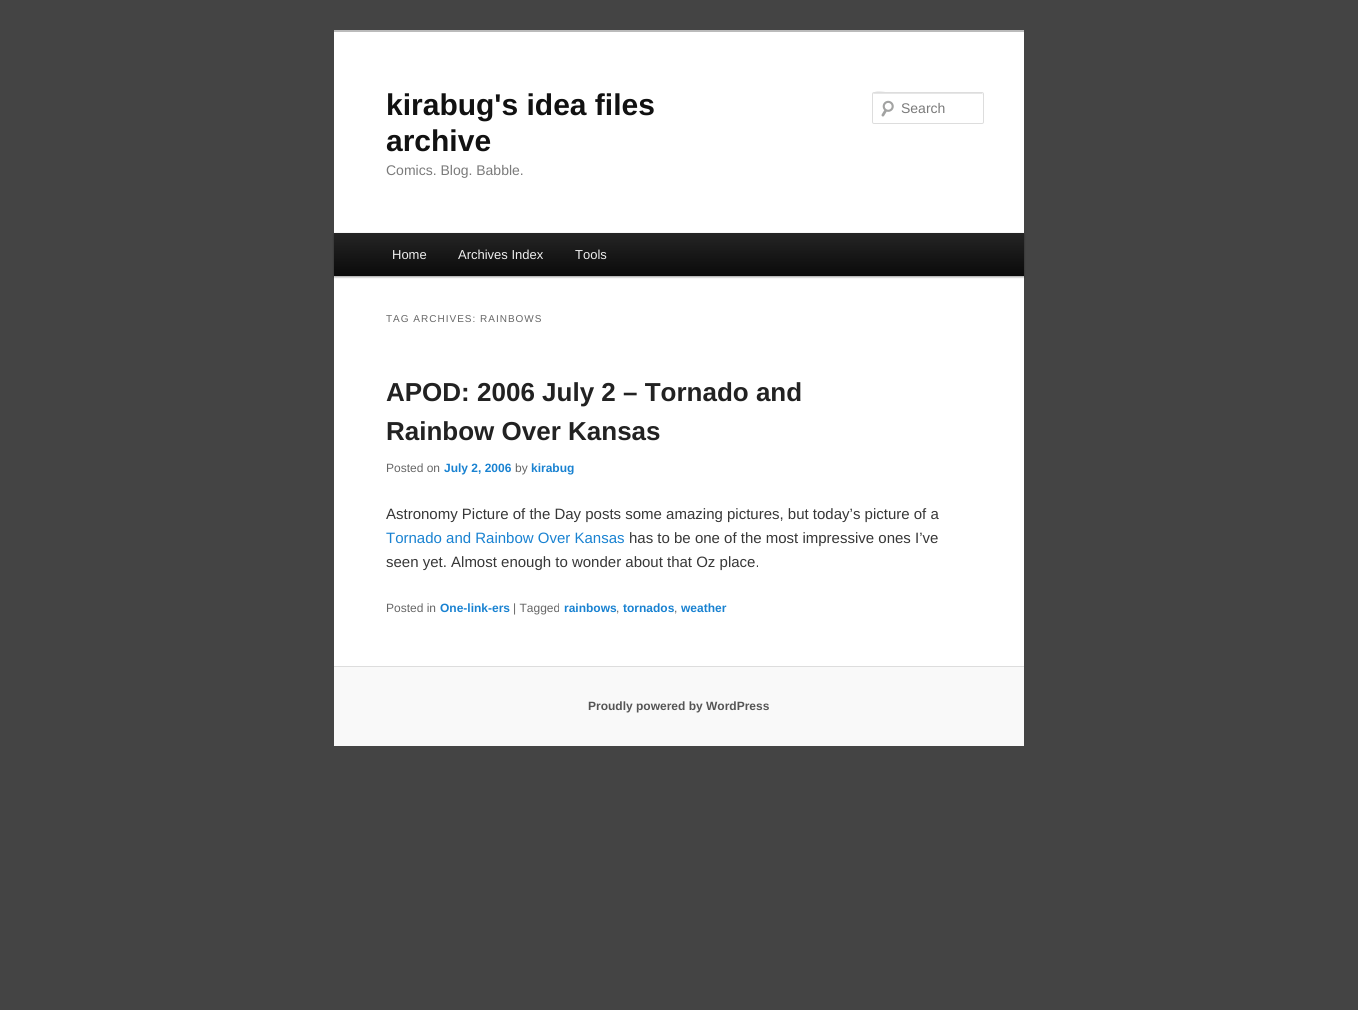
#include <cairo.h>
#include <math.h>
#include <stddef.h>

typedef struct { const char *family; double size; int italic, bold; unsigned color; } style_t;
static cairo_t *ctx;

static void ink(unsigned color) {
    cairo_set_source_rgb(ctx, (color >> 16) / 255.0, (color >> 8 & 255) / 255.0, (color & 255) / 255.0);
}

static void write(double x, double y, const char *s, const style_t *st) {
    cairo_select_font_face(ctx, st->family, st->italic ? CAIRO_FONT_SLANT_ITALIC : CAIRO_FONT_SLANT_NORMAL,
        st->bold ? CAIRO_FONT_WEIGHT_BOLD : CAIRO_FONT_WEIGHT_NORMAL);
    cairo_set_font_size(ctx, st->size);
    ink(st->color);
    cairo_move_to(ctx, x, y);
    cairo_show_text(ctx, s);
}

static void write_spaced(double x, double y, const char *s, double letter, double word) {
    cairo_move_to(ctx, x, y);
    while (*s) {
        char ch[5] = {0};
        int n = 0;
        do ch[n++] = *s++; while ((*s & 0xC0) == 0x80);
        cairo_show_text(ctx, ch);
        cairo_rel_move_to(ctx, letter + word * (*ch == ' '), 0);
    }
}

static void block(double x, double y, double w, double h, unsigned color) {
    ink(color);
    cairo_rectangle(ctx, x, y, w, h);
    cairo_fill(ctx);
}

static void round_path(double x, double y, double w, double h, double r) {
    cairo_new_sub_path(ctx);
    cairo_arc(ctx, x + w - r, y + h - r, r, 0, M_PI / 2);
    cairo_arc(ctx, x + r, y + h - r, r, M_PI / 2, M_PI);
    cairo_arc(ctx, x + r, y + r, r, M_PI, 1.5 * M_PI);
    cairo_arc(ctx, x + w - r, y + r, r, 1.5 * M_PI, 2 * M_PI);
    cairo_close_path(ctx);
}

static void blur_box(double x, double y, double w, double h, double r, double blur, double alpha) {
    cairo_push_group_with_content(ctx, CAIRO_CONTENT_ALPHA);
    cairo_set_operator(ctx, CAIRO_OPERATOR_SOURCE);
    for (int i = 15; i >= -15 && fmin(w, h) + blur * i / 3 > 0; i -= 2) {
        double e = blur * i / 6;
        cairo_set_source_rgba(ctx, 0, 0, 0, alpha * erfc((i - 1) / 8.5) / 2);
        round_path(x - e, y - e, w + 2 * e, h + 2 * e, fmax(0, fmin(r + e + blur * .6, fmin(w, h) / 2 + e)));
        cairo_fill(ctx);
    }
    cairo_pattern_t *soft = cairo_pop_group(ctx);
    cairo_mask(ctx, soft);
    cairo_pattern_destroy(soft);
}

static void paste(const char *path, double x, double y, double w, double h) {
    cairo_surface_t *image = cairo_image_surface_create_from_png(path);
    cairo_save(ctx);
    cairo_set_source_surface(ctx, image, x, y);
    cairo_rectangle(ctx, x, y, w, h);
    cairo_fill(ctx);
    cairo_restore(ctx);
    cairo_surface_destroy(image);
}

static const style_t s1 = {"Liberation Sans", 30, 0, 1, 0x111111};
static const style_t s2 = {"Liberation Sans", 14, 0, 0, 0x7a7a7a};
static const style_t s3 = {"Liberation Sans", 13, 0, 0, 0xeeeeee};
static const style_t s4 = {"Liberation Sans", 26, 0, 1, 0x222222};
static const style_t s5 = {"Liberation Sans", 12, 0, 0, 0x666666};
static const style_t s6 = {"Liberation Sans", 12, 0, 1, 0x1982d1};
static const style_t s7 = {"Liberation Sans", 15, 0, 0, 0x373737};
static const style_t s8 = {"Liberation Sans", 15, 0, 0, 0x1982d1};
static const style_t s9 = {"Liberation Sans", 12, 0, 1, 0x555555};

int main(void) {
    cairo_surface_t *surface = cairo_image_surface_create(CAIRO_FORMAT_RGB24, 1358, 1010);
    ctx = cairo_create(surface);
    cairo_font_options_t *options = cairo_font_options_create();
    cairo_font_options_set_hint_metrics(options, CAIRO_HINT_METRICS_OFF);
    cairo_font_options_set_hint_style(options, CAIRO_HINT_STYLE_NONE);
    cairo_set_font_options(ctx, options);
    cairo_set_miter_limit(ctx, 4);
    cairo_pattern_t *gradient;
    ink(0x444444);
    cairo_paint(ctx);
    block(334, 32, 690, 634, 0xffffff);
    block(334, 30, 690, 2, 0xbbbbbb);
    write(386, 115, "kirabug's idea files", &s1);
    write(386, 151, "archive", &s1);
    write(386, 175, "Comics. Blog. Babble.", &s2);
    paste("pic1.png", 881, 100, 13, 17);
    ink(0xe6e6e6);
    cairo_new_path(ctx);
    cairo_move_to(ctx, 874, 94);
    cairo_line_to(ctx, 983, 94);
    cairo_line_to(ctx, 983, 95);
    cairo_line_to(ctx, 982, 93);
    cairo_line_to(ctx, 892, 93);
    cairo_curve_to(ctx, 888, 93, 873, 88, 873, 95);
    cairo_curve_to(ctx, 873, 94, 873, 94, 874, 94);
    cairo_close_path(ctx);
    cairo_fill(ctx);
    round_path(872.5, 92.5, 111, 31, 1.5);
    ink(0xdddddd);
    cairo_set_line_width(ctx, 1);
    cairo_stroke(ctx);
    write(901, 113, "Search", &s2);
    ink(0x000000);
    blur_box(334, 234, 690, 43, 0, 1, 0.4);
    gradient = cairo_pattern_create_linear(679, 233, 679, 276);
    cairo_pattern_add_color_stop_rgba(gradient, 0, 0.145, 0.145, 0.145, 1);
    cairo_pattern_add_color_stop_rgba(gradient, 1, 0.039, 0.039, 0.039, 1);
    cairo_set_source(ctx, gradient);
    cairo_pattern_destroy(gradient);
    cairo_rectangle(ctx, 334, 233, 690, 43);
    cairo_fill(ctx);
    write(392, 259, "Home", &s3);
    write(458, 259, "Archives Index", &s3);
    write(575, 259, "Tools", &s3);
    cairo_set_font_size(ctx, 10);
    ink(0x666666);
    write_spaced(386, 322, "TAG ARCHIVES: RAINBOWS", 1, 0);
    write(386, 401, "APOD: 2006 July 2 – Tornado and", &s4);
    write(386, 440, "Rainbow Over Kansas", &s4);
    write(386, 472, "Posted on", &s5);
    write(444, 472, "July 2, 2006", &s6);
    write(515, 472, "by", &s5);
    write(531, 472, "kirabug", &s6);
    write(386, 519, "Astronomy Picture of the Day posts some amazing pictures, but today’s picture of a", &s7);
    write(386, 543, "Tornado and Rainbow Over Kansas", &s8);
    write(629, 543, "has to be one of the most impressive ones I’ve", &s7);
    write(386, 567, "seen yet. Almost enough to wonder about that Oz place.", &s7);
    write(386, 612, "Posted in", &s5);
    write(440, 612, "One-link-ers", &s6);
    write(513, 612, "| Tagged", &s5);
    write(564, 612, "rainbows", &s6);
    write(616, 612, ",", &s5);
    write(623, 612, "tornados", &s6);
    write(674, 612, ",", &s5);
    write(681, 612, "weather", &s6);
    block(334, 667, 690, 79, 0xf9f9f9);
    block(334, 666, 690, 1, 0xdddddd);
    write(588, 710, "Proudly powered by WordPress", &s9);
    cairo_surface_write_to_png(surface, "screenshot.png");
    cairo_font_options_destroy(options);
    cairo_destroy(ctx);
    cairo_surface_destroy(surface);
    return 0;
}
